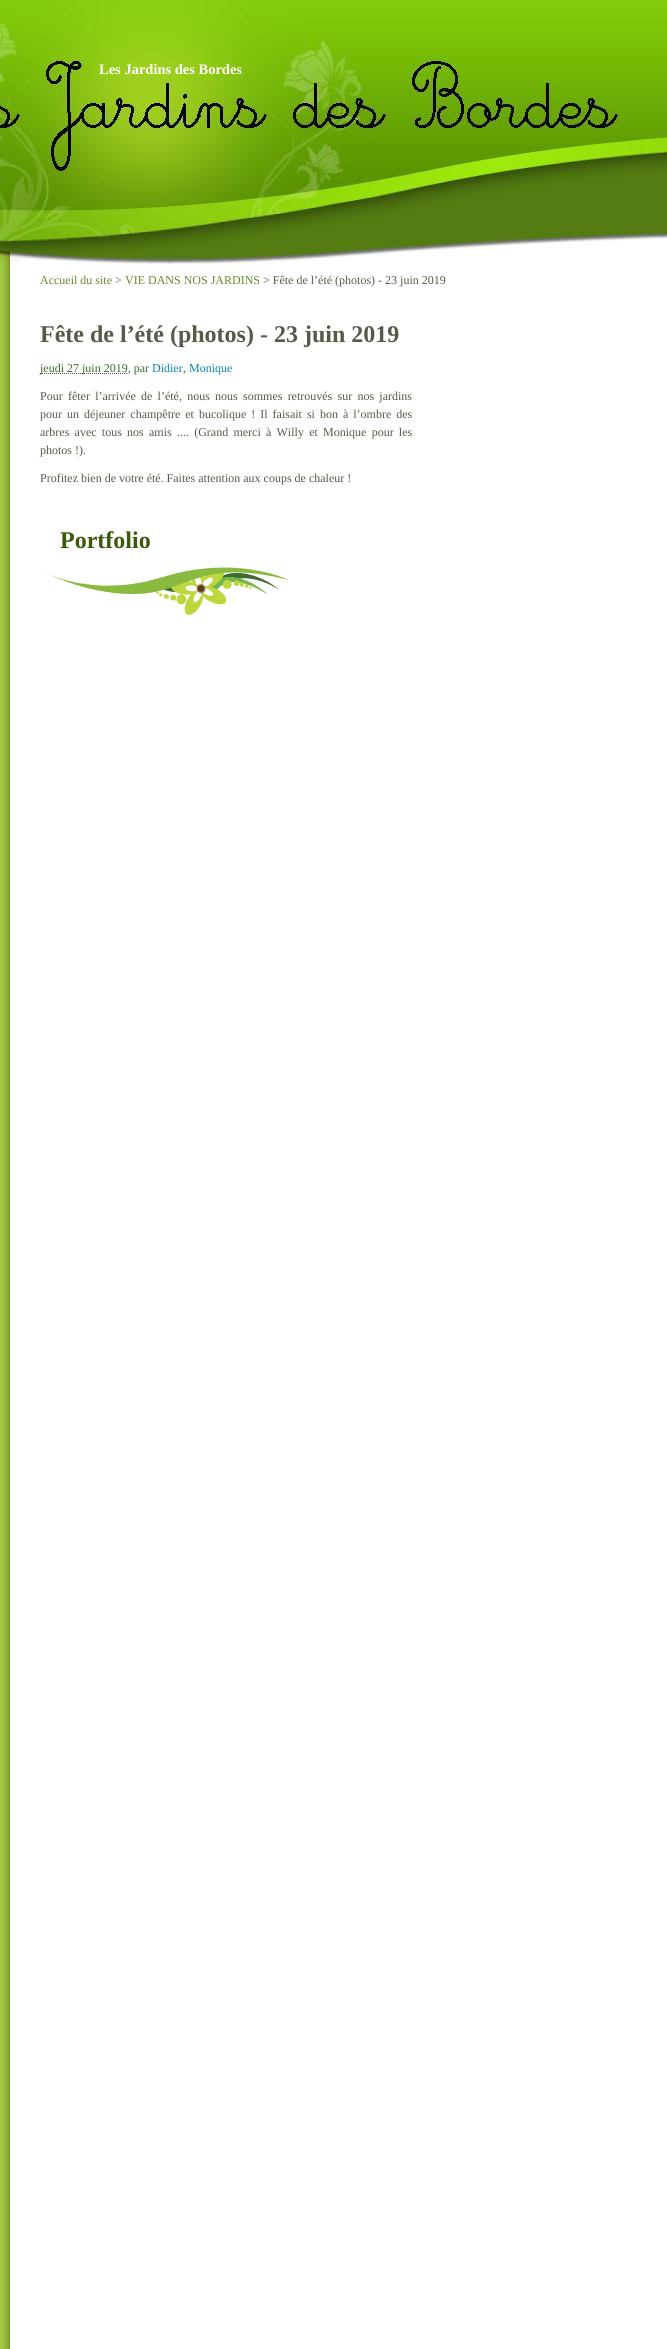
#include <cairo.h>
#include <math.h>
#include <stddef.h>

typedef struct { const char *family; double size; int italic, bold; unsigned color; } style_t;
static cairo_t *ctx;

static void ink(unsigned color) {
    cairo_set_source_rgb(ctx, (color >> 16) / 255.0, (color >> 8 & 255) / 255.0, (color & 255) / 255.0);
}

static void write(double x, double y, const char *s, const style_t *st) {
    cairo_select_font_face(ctx, st->family, st->italic ? CAIRO_FONT_SLANT_ITALIC : CAIRO_FONT_SLANT_NORMAL,
        st->bold ? CAIRO_FONT_WEIGHT_BOLD : CAIRO_FONT_WEIGHT_NORMAL);
    cairo_set_font_size(ctx, st->size);
    ink(st->color);
    cairo_move_to(ctx, x, y);
    cairo_show_text(ctx, s);
}

static void write_spaced(double x, double y, const char *s, double letter, double word) {
    cairo_move_to(ctx, x, y);
    while (*s) {
        char ch[5] = {0};
        int n = 0;
        do ch[n++] = *s++; while ((*s & 0xC0) == 0x80);
        cairo_show_text(ctx, ch);
        cairo_rel_move_to(ctx, letter + word * (*ch == ' '), 0);
    }
}

static void paste(const char *path, double x, double y, double w, double h) {
    cairo_surface_t *image = cairo_image_surface_create_from_png(path);
    cairo_save(ctx);
    cairo_set_source_surface(ctx, image, x, y);
    cairo_rectangle(ctx, x, y, w, h);
    cairo_fill(ctx);
    cairo_restore(ctx);
    cairo_surface_destroy(image);
}

static const style_t s1 = {"Liberation Serif", 14.5, 0, 1, 0xffffff};
static const style_t s2 = {"Liberation Serif", 12, 0, 0, 0x65882e};
static const style_t s3 = {"Liberation Serif", 12, 0, 0, 0x555a4a};
static const style_t s4 = {"Liberation Serif", 24, 0, 1, 0x555a4a};
static const style_t s5 = {"Liberation Serif", 12, 0, 0, 0x3e6b33};
static const style_t s6 = {"Liberation Serif", 12, 0, 0, 0x0683ab};
static const style_t s7 = {"Liberation Serif", 24, 0, 1, 0x3a5909};

int main(void) {
    cairo_surface_t *surface = cairo_image_surface_create(CAIRO_FORMAT_RGB24, 667, 2349);
    ctx = cairo_create(surface);
    cairo_font_options_t *options = cairo_font_options_create();
    cairo_font_options_set_hint_metrics(options, CAIRO_HINT_METRICS_OFF);
    cairo_font_options_set_hint_style(options, CAIRO_HINT_STYLE_NONE);
    cairo_set_font_options(ctx, options);
    cairo_set_miter_limit(ctx, 4);
    ink(0xa0c73f);
    cairo_paint(ctx);
    paste("pic1.png", 0, 0, 667, 265);
    write(99, 74, "Les Jardins des Bordes", &s1);
    paste("pic2.png", 3, 265, 664, 2084);
    write(40, 284, "Accueil du site", &s2);
    write(115, 284, ">", &s3);
    write(125, 284, "VIE DANS NOS JARDINS", &s2);
    write(263, 284, "> Fête de l’été (photos) - 23 juin 2019", &s3);
    write(40, 342, "Fête de l’été (photos) - 23 juin 2019", &s4);
    cairo_new_path(ctx);
    cairo_move_to(ctx, 40, 373.5);
    cairo_line_to(ctx, 127.5, 373.5);
    ink(0x3e6b33);
    cairo_set_line_width(ctx, 1);
    cairo_set_dash(ctx, (double[]){1, 1}, 2, 0);
    cairo_stroke(ctx);
    write(40, 372, "jeudi 27 juin 2019, par", &s5);
    write(152, 372, "Didier", &s6);
    write(183, 372, ",", &s5);
    write(189, 372, "Monique", &s6);
    ink(0x555a4a);
    write_spaced(40, 400, "Pour fêter l’arrivée de l’été, nous nous sommes retrouvés sur nos jardins", 0, 2.25);
    write_spaced(40, 418, "pour un déjeuner champêtre et bucolique ! Il faisait si bon à l’ombre des", 0, 2);
    write_spaced(40, 436, "arbres avec tous nos amis .... (Grand merci à Willy et Monique pour les", 0, 2.25);
    write(40, 454, "photos !).", &s3);
    write(40, 482, "Profitez bien de votre été. Faites attention aux coups de chaleur !", &s3);
    paste("pic3.png", 40, 567, 249, 48);
    write(60, 548, "Portfolio", &s7);
    cairo_surface_write_to_png(surface, "screenshot.png");
    cairo_font_options_destroy(options);
    cairo_destroy(ctx);
    cairo_surface_destroy(surface);
    return 0;
}
